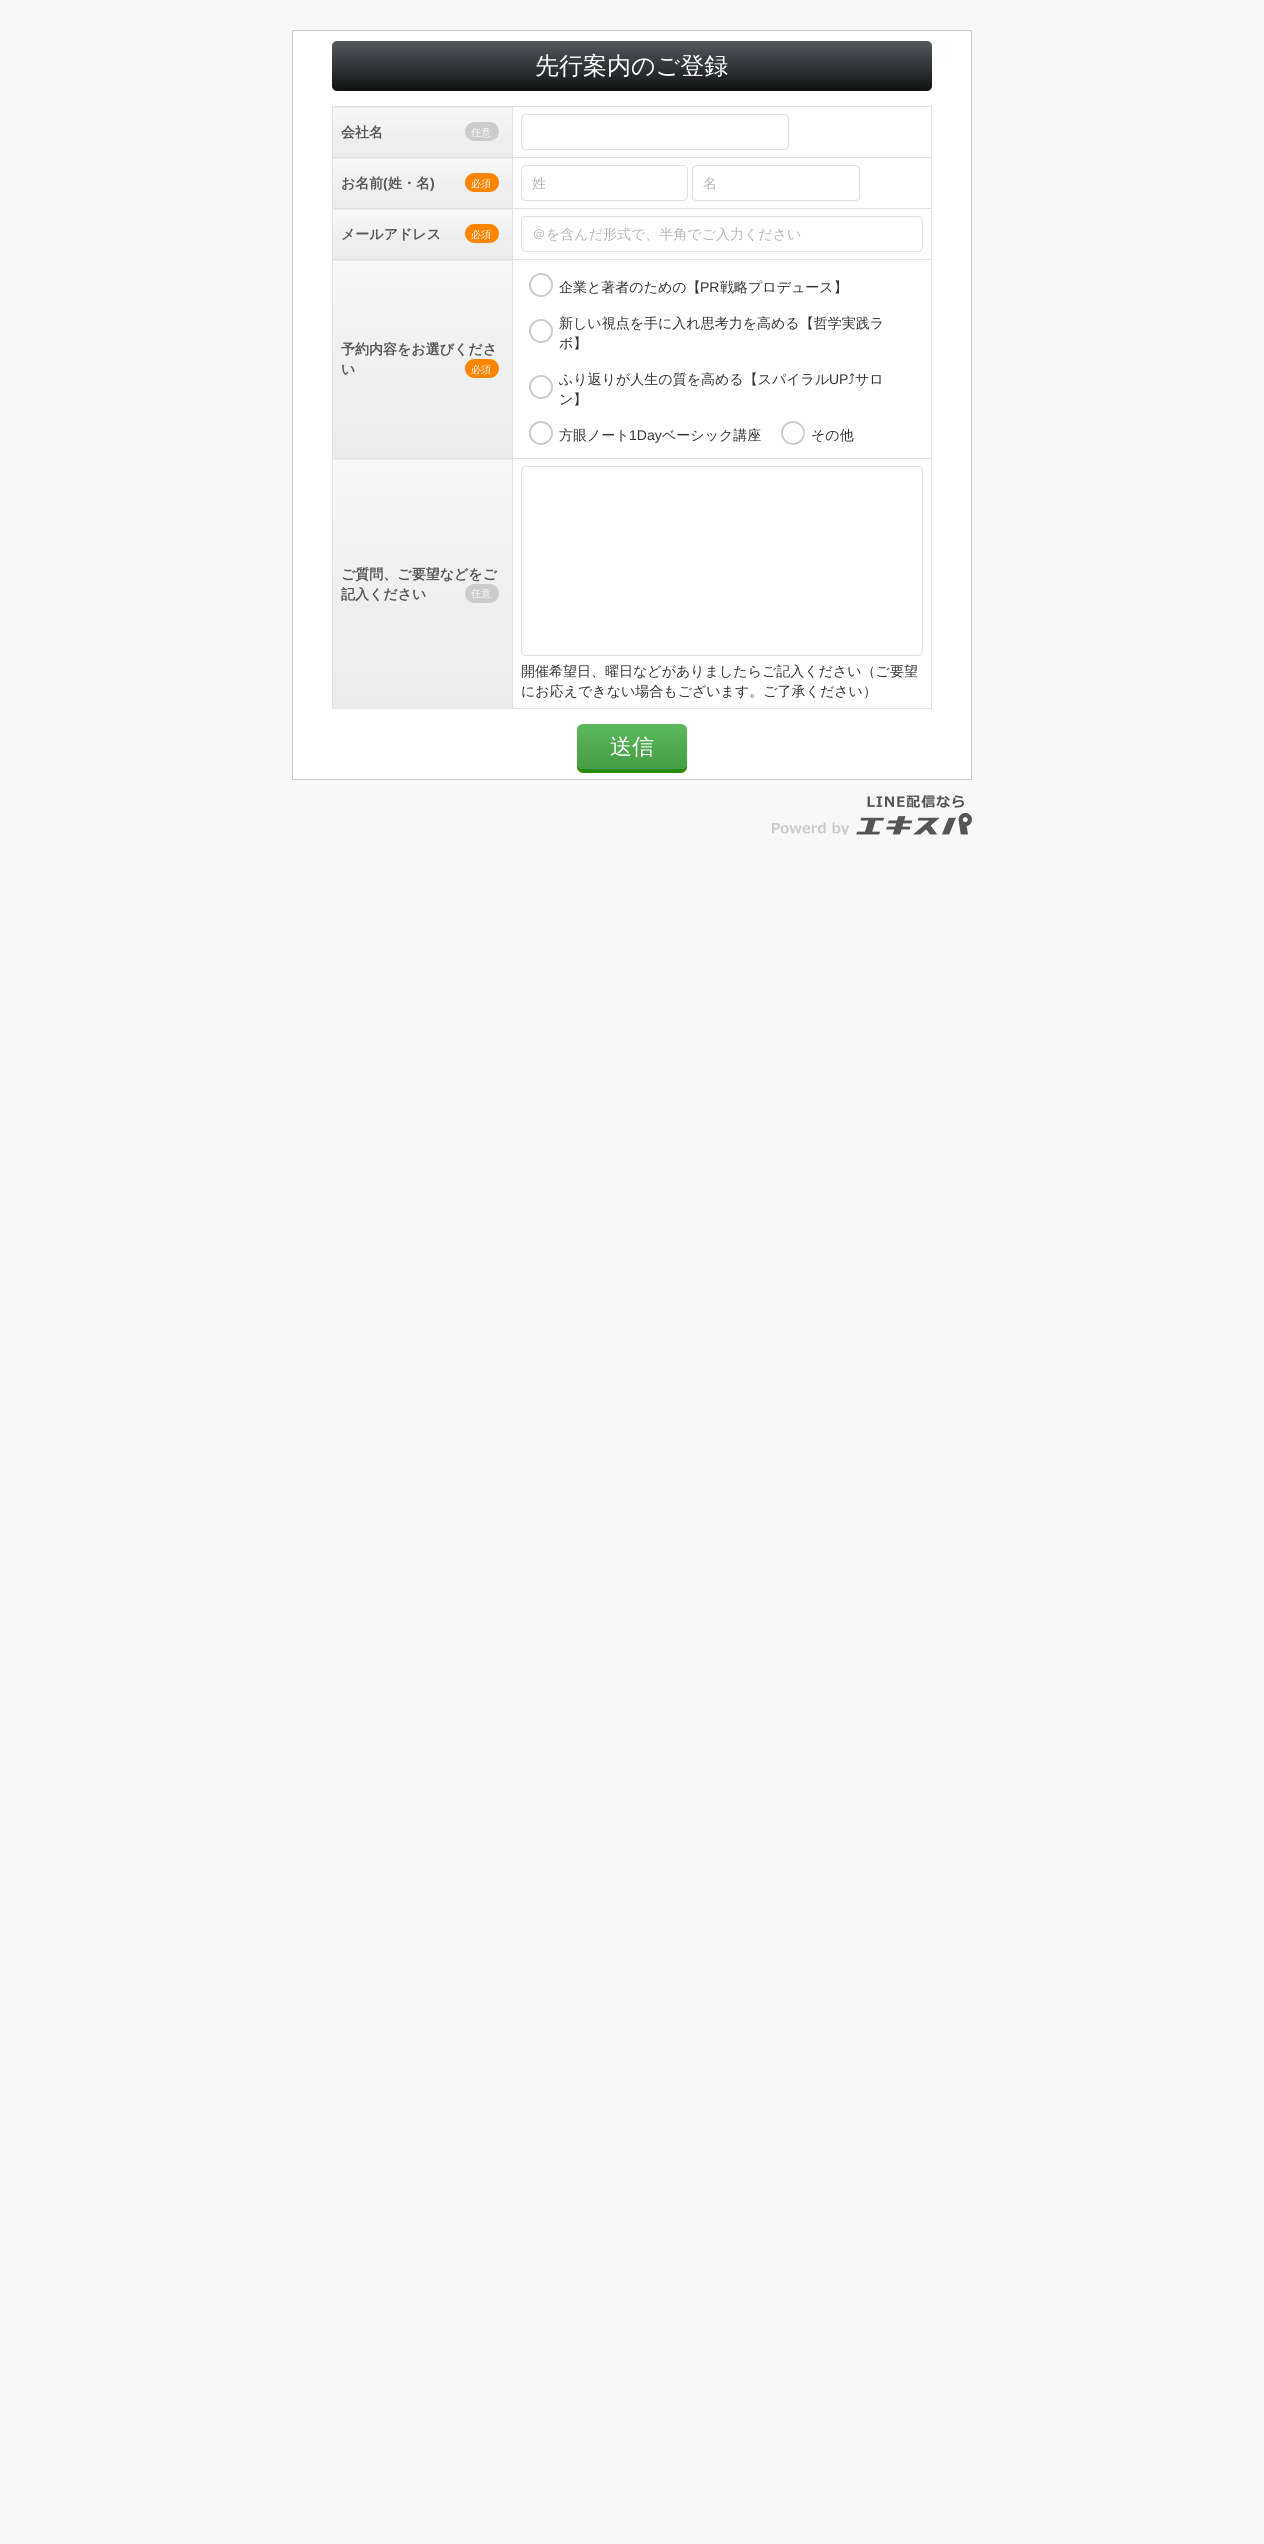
#include <cairo.h>
#include <math.h>
#include <stddef.h>

typedef struct { const char *family; double size; int italic, bold; unsigned color; } style_t;
static cairo_t *ctx;

static void ink(unsigned color) {
    cairo_set_source_rgb(ctx, (color >> 16) / 255.0, (color >> 8 & 255) / 255.0, (color & 255) / 255.0);
}

static void write(double x, double y, const char *s, const style_t *st) {
    cairo_select_font_face(ctx, st->family, st->italic ? CAIRO_FONT_SLANT_ITALIC : CAIRO_FONT_SLANT_NORMAL,
        st->bold ? CAIRO_FONT_WEIGHT_BOLD : CAIRO_FONT_WEIGHT_NORMAL);
    cairo_set_font_size(ctx, st->size);
    ink(st->color);
    cairo_move_to(ctx, x, y);
    cairo_show_text(ctx, s);
}

static void block(double x, double y, double w, double h, unsigned color) {
    ink(color);
    cairo_rectangle(ctx, x, y, w, h);
    cairo_fill(ctx);
}

static void round_path(double x, double y, double w, double h, double r) {
    cairo_new_sub_path(ctx);
    cairo_arc(ctx, x + w - r, y + h - r, r, 0, M_PI / 2);
    cairo_arc(ctx, x + r, y + h - r, r, M_PI / 2, M_PI);
    cairo_arc(ctx, x + r, y + r, r, M_PI, 1.5 * M_PI);
    cairo_arc(ctx, x + w - r, y + r, r, 1.5 * M_PI, 2 * M_PI);
    cairo_close_path(ctx);
}

static void paste(const char *path, double x, double y, double w, double h) {
    cairo_surface_t *image = cairo_image_surface_create_from_png(path);
    cairo_save(ctx);
    cairo_set_source_surface(ctx, image, x, y);
    cairo_rectangle(ctx, x, y, w, h);
    cairo_fill(ctx);
    cairo_restore(ctx);
    cairo_surface_destroy(image);
}

static const style_t s1 = {"WenQuanYi Zen Hei Medium", 24, 0, 0, 0xffffff};
static const style_t s2 = {"WenQuanYi Zen Hei", 14, 0, 1, 0x555555};
static const style_t s3 = {"WenQuanYi Zen Hei Medium", 10, 0, 0, 0xffffff};
static const style_t s4 = {"Liberation Sans", 14, 0, 1, 0x555555};
static const style_t s5 = {"WenQuanYi Zen Hei Medium", 14, 0, 0, 0xb7b7b7};
static const style_t s6 = {"WenQuanYi Zen Hei Medium", 14, 0, 0, 0x333333};
static const style_t s7 = {"Liberation Sans", 14, 0, 0, 0x333333};
static const style_t s8 = {"IPAPGothic", 14, 0, 0, 0x333333};
static const style_t s9 = {"WenQuanYi Zen Hei Medium", 22, 0, 0, 0xffffff};

int main(void) {
    cairo_surface_t *surface = cairo_image_surface_create(CAIRO_FORMAT_RGB24, 1264, 2544);
    ctx = cairo_create(surface);
    cairo_font_options_t *options = cairo_font_options_create();
    cairo_font_options_set_hint_metrics(options, CAIRO_HINT_METRICS_OFF);
    cairo_font_options_set_hint_style(options, CAIRO_HINT_STYLE_NONE);
    cairo_set_font_options(ctx, options);
    cairo_set_miter_limit(ctx, 4);
    cairo_pattern_t *gradient;
    ink(0xf8f8f8);
    cairo_paint(ctx);
    ink(0xffffff);
    cairo_rectangle(ctx, 292.5, 30.5, 679, 749);
    cairo_fill_preserve(ctx);
    ink(0xcccccc);
    cairo_set_line_width(ctx, 1);
    cairo_stroke(ctx);
    gradient = cairo_pattern_create_linear(632, 41, 632, 91);
    cairo_pattern_add_color_stop_rgba(gradient, 0, 0.329, 0.349, 0.369, 1);
    cairo_pattern_add_color_stop_rgba(gradient, 1, 0.067, 0.067, 0.067, 1);
    cairo_set_source(ctx, gradient);
    cairo_pattern_destroy(gradient);
    round_path(332, 41, 600, 50, 5);
    cairo_fill(ctx);
    write(535, 74, "先行案内のご登録", &s1);
    gradient = cairo_pattern_create_linear(423, 59, 423, 108);
    cairo_pattern_add_color_stop_rgba(gradient, 0, 0.973, 0.973, 0.973, 1);
    cairo_pattern_add_color_stop_rgba(gradient, 0.5, 0.941, 0.941, 0.941, 1);
    cairo_pattern_add_color_stop_rgba(gradient, 1, 0.922, 0.922, 0.922, 1);
    cairo_set_source(ctx, gradient);
    cairo_pattern_destroy(gradient);
    cairo_rectangle(ctx, 333, 107, 179, 1);
    cairo_fill(ctx);
    gradient = cairo_pattern_create_linear(423, 108, 423, 157);
    cairo_pattern_add_color_stop_rgba(gradient, 0, 0.973, 0.973, 0.973, 1);
    cairo_pattern_add_color_stop_rgba(gradient, 0.5, 0.941, 0.941, 0.941, 1);
    cairo_pattern_add_color_stop_rgba(gradient, 1, 0.922, 0.922, 0.922, 1);
    cairo_set_source(ctx, gradient);
    cairo_pattern_destroy(gradient);
    cairo_rectangle(ctx, 333, 108, 179, 49);
    cairo_fill(ctx);
    block(512, 106, 420, 1, 0xe2e2e2);
    block(512, 157, 420, 1, 0xe2e2e2);
    block(512, 208, 420, 1, 0xe2e2e2);
    block(512, 259, 420, 1, 0xe2e2e2);
    block(512, 458, 420, 1, 0xe2e2e2);
    block(931, 458, 1, 251, 0xe2e2e2);
    block(512, 708, 420, 1, 0xe2e2e2);
    block(512, 458, 1, 251, 0xe2e2e2);
    block(332, 458, 181, 1, 0xe2e2e2);
    block(512, 259, 1, 200, 0xe2e2e2);
    block(332, 259, 181, 1, 0xe2e2e2);
    block(512, 208, 1, 52, 0xe2e2e2);
    block(332, 208, 181, 1, 0xe2e2e2);
    block(512, 157, 1, 52, 0xe2e2e2);
    block(332, 157, 181, 1, 0xe2e2e2);
    block(512, 106, 1, 52, 0xe2e2e2);
    block(332, 106, 181, 1, 0xe2e2e2);
    block(332, 708, 181, 1, 0xe2e2e2);
    block(332, 458, 1, 251, 0xe2e2e2);
    block(332, 259, 1, 200, 0xe2e2e2);
    block(332, 208, 1, 52, 0xe2e2e2);
    block(332, 157, 1, 52, 0xe2e2e2);
    block(332, 106, 1, 52, 0xe2e2e2);
    write(341, 137, "会社名", &s2);
    ink(0xcccccc);
    round_path(465, 122, 34, 19, 9.5);
    cairo_fill(ctx);
    write(471, 136, "任意", &s3);
    block(931, 259, 1, 200, 0xe2e2e2);
    block(931, 208, 1, 52, 0xe2e2e2);
    block(931, 157, 1, 52, 0xe2e2e2);
    block(931, 106, 1, 52, 0xe2e2e2);
    round_path(521.5, 114.5, 267, 35, 4.5);
    ink(0xe1e1e1);
    cairo_stroke(ctx);
    gradient = cairo_pattern_create_linear(423, 110, 423, 159);
    cairo_pattern_add_color_stop_rgba(gradient, 0, 0.973, 0.973, 0.973, 1);
    cairo_pattern_add_color_stop_rgba(gradient, 0.5, 0.941, 0.941, 0.941, 1);
    cairo_pattern_add_color_stop_rgba(gradient, 1, 0.922, 0.922, 0.922, 1);
    cairo_set_source(ctx, gradient);
    cairo_pattern_destroy(gradient);
    cairo_rectangle(ctx, 333, 158, 179, 1);
    cairo_fill(ctx);
    gradient = cairo_pattern_create_linear(423, 159, 423, 208);
    cairo_pattern_add_color_stop_rgba(gradient, 0, 0.973, 0.973, 0.973, 1);
    cairo_pattern_add_color_stop_rgba(gradient, 0.5, 0.941, 0.941, 0.941, 1);
    cairo_pattern_add_color_stop_rgba(gradient, 1, 0.922, 0.922, 0.922, 1);
    cairo_set_source(ctx, gradient);
    cairo_pattern_destroy(gradient);
    cairo_rectangle(ctx, 333, 159, 179, 49);
    cairo_fill(ctx);
    write(341, 188, "お名前", &s2);
    write(383, 188, "(", &s4);
    write(388, 188, "姓・名", &s2);
    write(430, 188, ")", &s4);
    ink(0xff8400);
    round_path(465, 173, 34, 19, 9.5);
    cairo_fill(ctx);
    write(471, 187, "必須", &s3);
    round_path(521.5, 165.5, 166, 35, 4.5);
    ink(0xe1e1e1);
    cairo_stroke(ctx);
    write(532, 188, "姓", &s5);
    round_path(692.5, 165.5, 167, 35, 4.5);
    ink(0xe1e1e1);
    cairo_stroke(ctx);
    write(703, 188, "名", &s5);
    gradient = cairo_pattern_create_linear(423, 161, 423, 210);
    cairo_pattern_add_color_stop_rgba(gradient, 0, 0.973, 0.973, 0.973, 1);
    cairo_pattern_add_color_stop_rgba(gradient, 0.5, 0.941, 0.941, 0.941, 1);
    cairo_pattern_add_color_stop_rgba(gradient, 1, 0.922, 0.922, 0.922, 1);
    cairo_set_source(ctx, gradient);
    cairo_pattern_destroy(gradient);
    cairo_rectangle(ctx, 333, 209, 179, 1);
    cairo_fill(ctx);
    gradient = cairo_pattern_create_linear(423, 210, 423, 259);
    cairo_pattern_add_color_stop_rgba(gradient, 0, 0.973, 0.973, 0.973, 1);
    cairo_pattern_add_color_stop_rgba(gradient, 0.5, 0.941, 0.941, 0.941, 1);
    cairo_pattern_add_color_stop_rgba(gradient, 1, 0.922, 0.922, 0.922, 1);
    cairo_set_source(ctx, gradient);
    cairo_pattern_destroy(gradient);
    cairo_rectangle(ctx, 333, 210, 179, 49);
    cairo_fill(ctx);
    write(341, 239, "メールアドレス", &s2);
    ink(0xff8400);
    round_path(465, 224, 34, 19, 9.5);
    cairo_fill(ctx);
    write(471, 238, "必須", &s3);
    round_path(521.5, 216.5, 401, 35, 4.5);
    ink(0xe1e1e1);
    cairo_stroke(ctx);
    write(532, 239, "＠を含んだ形式で、半角でご入力ください", &s5);
    gradient = cairo_pattern_create_linear(423, 64, 423, 261);
    cairo_pattern_add_color_stop_rgba(gradient, 0, 0.973, 0.973, 0.973, 1);
    cairo_pattern_add_color_stop_rgba(gradient, 0.5, 0.941, 0.941, 0.941, 1);
    cairo_pattern_add_color_stop_rgba(gradient, 1, 0.922, 0.922, 0.922, 1);
    cairo_set_source(ctx, gradient);
    cairo_pattern_destroy(gradient);
    cairo_rectangle(ctx, 333, 260, 179, 1);
    cairo_fill(ctx);
    gradient = cairo_pattern_create_linear(423, 261, 423, 458);
    cairo_pattern_add_color_stop_rgba(gradient, 0, 0.973, 0.973, 0.973, 1);
    cairo_pattern_add_color_stop_rgba(gradient, 0.5, 0.941, 0.941, 0.941, 1);
    cairo_pattern_add_color_stop_rgba(gradient, 1, 0.922, 0.922, 0.922, 1);
    cairo_set_source(ctx, gradient);
    cairo_pattern_destroy(gradient);
    cairo_rectangle(ctx, 333, 261, 179, 197);
    cairo_fill(ctx);
    write(341, 354, "予約内容をお選びくださ", &s2);
    write(341, 374, "い", &s2);
    ink(0xff8400);
    round_path(465, 359, 34, 19, 9.5);
    cairo_fill(ctx);
    write(471, 373, "必須", &s3);
    cairo_new_path(ctx);
    cairo_arc(ctx, 541, 285, 11, 0, 2 * M_PI);
    ink(0xcccccc);
    cairo_set_line_width(ctx, 2);
    cairo_stroke(ctx);
    write(559, 292, "企業と著者のための【", &s6);
    write(700, 292, "PR", &s7);
    write(720, 292, "戦略プロデュース】", &s6);
    cairo_new_path(ctx);
    cairo_arc(ctx, 541, 331, 11, 0, 2 * M_PI);
    ink(0xcccccc);
    cairo_stroke(ctx);
    write(559, 328, "新しい視点を手に入れ思考力を高める【哲学実践ラ", &s6);
    write(559, 348, "ボ】", &s6);
    cairo_new_path(ctx);
    cairo_arc(ctx, 541, 387, 11, 0, 2 * M_PI);
    ink(0xcccccc);
    cairo_stroke(ctx);
    write(559, 384, "ふり返りが人生の質を高める【スパイラル", &s6);
    write(829, 384, "UP", &s7);
    write(848, 384, "⤴", &s8);
    write(855, 384, "サロ", &s6);
    write(559, 404, "ン】", &s6);
    cairo_new_path(ctx);
    cairo_arc(ctx, 541, 433, 11, 0, 2 * M_PI);
    ink(0xcccccc);
    cairo_stroke(ctx);
    write(559, 440, "方眼ノート", &s6);
    write(629, 440, "1Day", &s7);
    write(662, 440, "ベーシック講座", &s6);
    cairo_new_path(ctx);
    cairo_arc(ctx, 793, 433, 11, 0, 2 * M_PI);
    ink(0xcccccc);
    cairo_stroke(ctx);
    write(811, 440, "その他", &s6);
    gradient = cairo_pattern_create_linear(423, 212, 423, 460);
    cairo_pattern_add_color_stop_rgba(gradient, 0, 0.973, 0.973, 0.973, 1);
    cairo_pattern_add_color_stop_rgba(gradient, 0.5, 0.941, 0.941, 0.941, 1);
    cairo_pattern_add_color_stop_rgba(gradient, 1, 0.922, 0.922, 0.922, 1);
    cairo_set_source(ctx, gradient);
    cairo_pattern_destroy(gradient);
    cairo_rectangle(ctx, 333, 459, 179, 1);
    cairo_fill(ctx);
    gradient = cairo_pattern_create_linear(423, 460, 423, 708);
    cairo_pattern_add_color_stop_rgba(gradient, 0, 0.973, 0.973, 0.973, 1);
    cairo_pattern_add_color_stop_rgba(gradient, 0.5, 0.941, 0.941, 0.941, 1);
    cairo_pattern_add_color_stop_rgba(gradient, 1, 0.922, 0.922, 0.922, 1);
    cairo_set_source(ctx, gradient);
    cairo_pattern_destroy(gradient);
    cairo_rectangle(ctx, 333, 460, 179, 248);
    cairo_fill(ctx);
    write(341, 579, "ご質問、ご要望などをご", &s2);
    write(341, 599, "記入ください", &s2);
    ink(0xcccccc);
    round_path(465, 584, 34, 19, 9.5);
    cairo_fill(ctx);
    write(471, 597, "任意", &s3);
    round_path(521.5, 466.5, 401, 189, 4.5);
    ink(0xe1e1e1);
    cairo_set_line_width(ctx, 1);
    cairo_stroke(ctx);
    write(521, 676, "開催希望日、曜日などがありましたらご記入ください（ご要望", &s6);
    write(521, 696, "にお応えできない場合もございます。ご了承ください）", &s6);
    ink(0x2a8d00);
    cairo_new_path(ctx);
    cairo_move_to(ctx, 577, 763);
    cairo_line_to(ctx, 577, 767);
    cairo_curve_to(ctx, 577, 770, 580, 773, 583, 773);
    cairo_line_to(ctx, 681, 773);
    cairo_curve_to(ctx, 684, 773, 687, 770, 687, 767);
    cairo_line_to(ctx, 687, 763);
    cairo_curve_to(ctx, 687, 766, 684, 769, 681, 769);
    cairo_line_to(ctx, 583, 769);
    cairo_curve_to(ctx, 580, 769, 577, 766, 577, 763);
    cairo_close_path(ctx);
    cairo_fill(ctx);
    gradient = cairo_pattern_create_linear(632, 724, 632, 769);
    cairo_pattern_add_color_stop_rgba(gradient, 0, 0.361, 0.722, 0.361, 1);
    cairo_pattern_add_color_stop_rgba(gradient, 1, 0.267, 0.616, 0.267, 1);
    cairo_set_source(ctx, gradient);
    cairo_pattern_destroy(gradient);
    round_path(577, 724, 110, 45, 6);
    cairo_fill(ctx);
    write(610, 754, "送信", &s9);
    paste("pic1.png", 772, 795, 200, 40);
    cairo_surface_write_to_png(surface, "screenshot.png");
    cairo_font_options_destroy(options);
    cairo_destroy(ctx);
    cairo_surface_destroy(surface);
    return 0;
}
